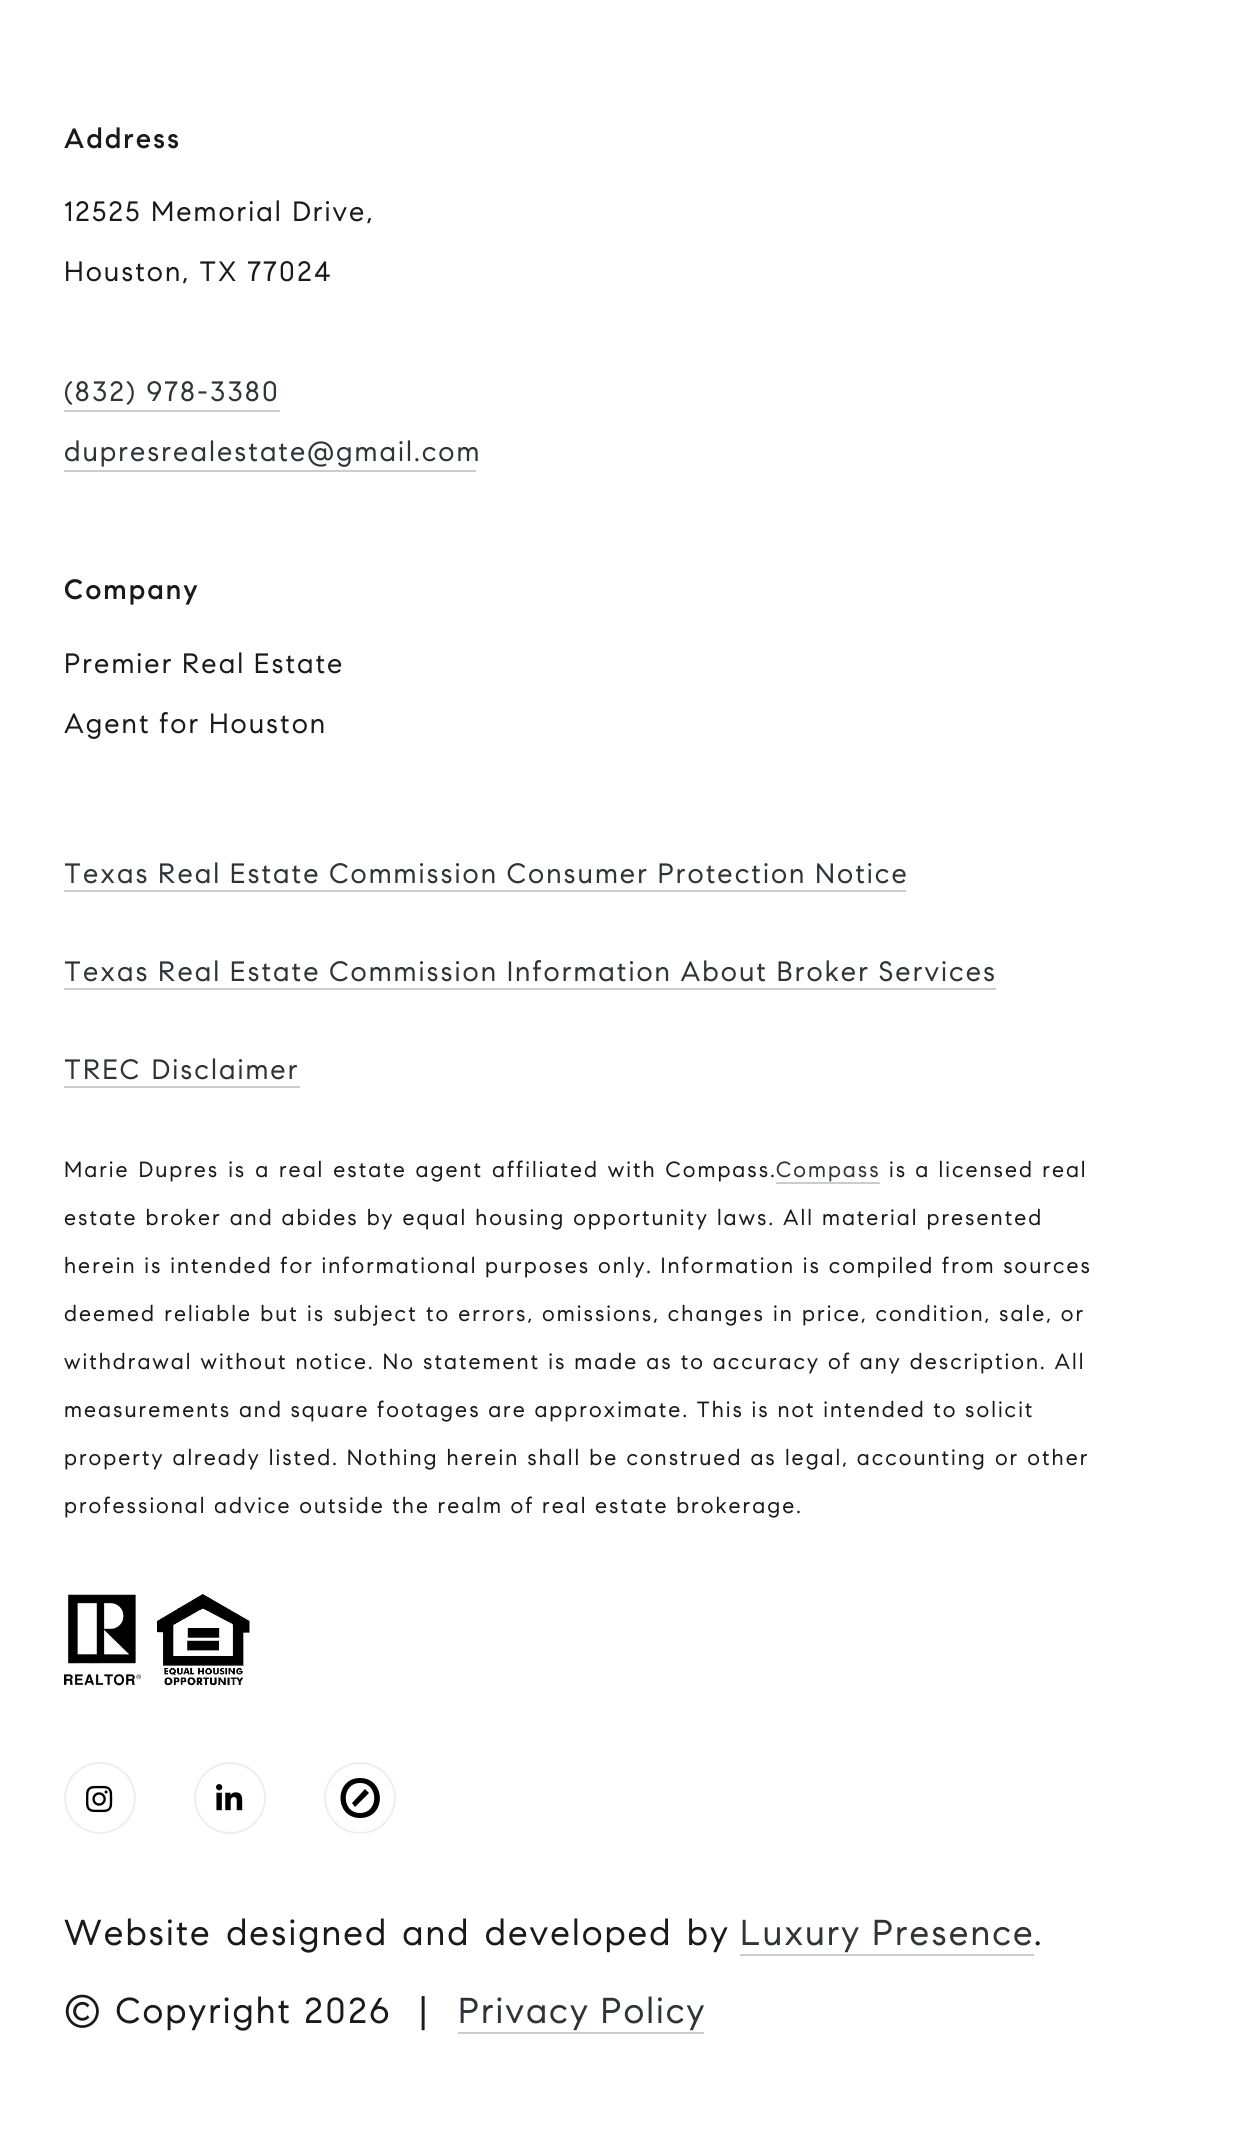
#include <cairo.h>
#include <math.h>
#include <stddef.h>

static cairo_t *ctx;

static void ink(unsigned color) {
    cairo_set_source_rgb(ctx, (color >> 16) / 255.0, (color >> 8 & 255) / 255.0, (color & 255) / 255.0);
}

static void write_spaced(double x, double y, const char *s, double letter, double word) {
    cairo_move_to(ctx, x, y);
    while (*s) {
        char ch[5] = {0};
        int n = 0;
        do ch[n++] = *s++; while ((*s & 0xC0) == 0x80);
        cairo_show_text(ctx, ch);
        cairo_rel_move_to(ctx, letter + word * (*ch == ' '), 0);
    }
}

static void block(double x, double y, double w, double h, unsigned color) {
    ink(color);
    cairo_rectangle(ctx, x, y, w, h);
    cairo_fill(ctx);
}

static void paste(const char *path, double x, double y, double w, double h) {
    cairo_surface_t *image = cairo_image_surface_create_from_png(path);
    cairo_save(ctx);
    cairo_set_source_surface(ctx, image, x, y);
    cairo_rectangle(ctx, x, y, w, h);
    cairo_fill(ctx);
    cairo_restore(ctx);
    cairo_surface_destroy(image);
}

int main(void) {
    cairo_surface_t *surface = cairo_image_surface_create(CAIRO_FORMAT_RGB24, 1255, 2149);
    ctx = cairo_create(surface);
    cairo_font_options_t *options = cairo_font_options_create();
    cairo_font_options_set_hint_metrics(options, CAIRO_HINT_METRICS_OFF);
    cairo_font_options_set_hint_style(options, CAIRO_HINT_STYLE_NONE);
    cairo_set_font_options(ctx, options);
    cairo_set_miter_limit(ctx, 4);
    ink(0xffffff);
    cairo_paint(ctx);
    cairo_select_font_face(ctx, "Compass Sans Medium", CAIRO_FONT_SLANT_NORMAL, CAIRO_FONT_WEIGHT_NORMAL);
    cairo_set_font_size(ctx, 28);
    ink(0x1a1a1a);
    write_spaced(64, 148, "Address", 2, 0);
    cairo_select_font_face(ctx, "Compass Sans", CAIRO_FONT_SLANT_NORMAL, CAIRO_FONT_WEIGHT_NORMAL);
    write_spaced(64, 221, "12525 Memorial Drive,", 2, -1);
    write_spaced(64, 281, "Houston, TX 77024", 2, -1);
    ink(0x303339);
    write_spaced(64, 401, "(832) 978-3380", 2, -1);
    block(64, 410, 216, 2, 0xcccccc);
    ink(0x303339);
    write_spaced(64, 461, "dupresrealestate@gmail.com", 2, 0);
    block(64, 470, 412, 2, 0xcccccc);
    cairo_select_font_face(ctx, "Compass Sans Medium", CAIRO_FONT_SLANT_NORMAL, CAIRO_FONT_WEIGHT_NORMAL);
    ink(0x1a1a1a);
    write_spaced(64, 599, "Company", 2, 0);
    cairo_select_font_face(ctx, "Compass Sans", CAIRO_FONT_SLANT_NORMAL, CAIRO_FONT_WEIGHT_NORMAL);
    write_spaced(64, 673, "Premier Real Estate", 2, -1.75);
    write_spaced(64, 733, "Agent for Houston", 2, -1.75);
    ink(0x303339);
    write_spaced(64, 883, "Texas Real Estate Commission Consumer Protection Notice", 2, -1.75);
    block(64, 890, 842, 2, 0xcccccc);
    ink(0x303339);
    write_spaced(64, 981, "Texas Real Estate Commission Information About Broker Services", 2, -1.75);
    block(64, 988, 932, 2, 0xcccccc);
    ink(0x303339);
    write_spaced(64, 1079, "TREC Disclaimer", 2, 0);
    block(64, 1086, 236, 2, 0xcccccc);
    cairo_set_font_size(ctx, 22);
    ink(0x1a1a1a);
    write_spaced(64, 1177, "Marie Dupres is a real estate agent affiliated with Compass.", 2, 0.25);
    ink(0x303339);
    write_spaced(776, 1177, "Compass", 2, 0);
    block(776, 1182, 104, 2, 0xcccccc);
    ink(0x1a1a1a);
    write_spaced(889, 1177, "is a licensed real", 2, -0.4);
    write_spaced(64, 1225, "estate broker and abides by equal housing opportunity laws. All material presented", 2, -0.6);
    write_spaced(64, 1273, "herein is intended for informational purposes only. Information is compiled from sources", 2, -0.9);
    write_spaced(64, 1321, "deemed reliable but is subject to errors, omissions, changes in price, condition, sale, or", 2, -0.4);
    write_spaced(64, 1369, "withdrawal without notice. No statement is made as to accuracy of any description. All", 2, -0.6);
    write_spaced(64, 1417, "measurements and square footages are approximate. This is not intended to solicit", 2, -1);
    write_spaced(64, 1465, "property already listed. Nothing herein shall be construed as legal, accounting or other", 2, -0.5);
    write_spaced(64, 1513, "professional advice outside the realm of real estate brokerage.", 2, -1);
    paste("pic1.png", 64, 1594, 186, 92);
    cairo_arc(ctx, 100, 1798, 35, 0, 2 * M_PI);
    ink(0xeeeeee);
    cairo_stroke(ctx);
    paste("pic2.png", 86, 1785, 27, 28);
    cairo_arc(ctx, 230, 1798, 35, 0, 2 * M_PI);
    cairo_stroke(ctx);
    paste("pic3.png", 216, 1784, 27, 27);
    cairo_arc(ctx, 360, 1798, 35, 0, 2 * M_PI);
    cairo_stroke(ctx);
    ink(0x000000);
    cairo_new_path(ctx);
    cairo_move_to(ctx, 360, 1778);
    cairo_curve_to(ctx, 334, 1778, 334, 1818, 360, 1818);
    cairo_curve_to(ctx, 387, 1818, 386, 1778, 360, 1778);
    cairo_close_path(ctx);
    cairo_move_to(ctx, 360, 1783);
    cairo_curve_to(ctx, 379, 1783, 379, 1813, 360, 1813);
    cairo_curve_to(ctx, 341, 1813, 341, 1783, 360, 1783);
    cairo_close_path(ctx);
    cairo_move_to(ctx, 365, 1789);
    cairo_line_to(ctx, 352, 1803);
    cairo_line_to(ctx, 355, 1807);
    cairo_line_to(ctx, 369, 1793);
    cairo_close_path(ctx);
    cairo_fill(ctx);
    cairo_set_font_size(ctx, 36);
    ink(0x1a1a1a);
    write_spaced(64, 1945, "Website designed and developed by", 2, 1.5);
    ink(0x303339);
    write_spaced(740, 1945, "Luxury Presence", 2, -2);
    block(740, 1954, 294, 2, 0xcccccc);
    ink(0x1a1a1a);
    write_spaced(1034, 1945, ".", 2, 0);
    write_spaced(64, 2023, "© Copyright", 2, 0);
    write_spaced(304, 2023, "2026", 2, 0);
    write_spaced(419, 2023, "|", 2, 0);
    ink(0x303339);
    write_spaced(458, 2023, "Privacy Policy", 2, -2);
    block(458, 2032, 246, 2, 0xcccccc);
    cairo_surface_write_to_png(surface, "screenshot.png");
    cairo_font_options_destroy(options);
    cairo_destroy(ctx);
    cairo_surface_destroy(surface);
    return 0;
}
